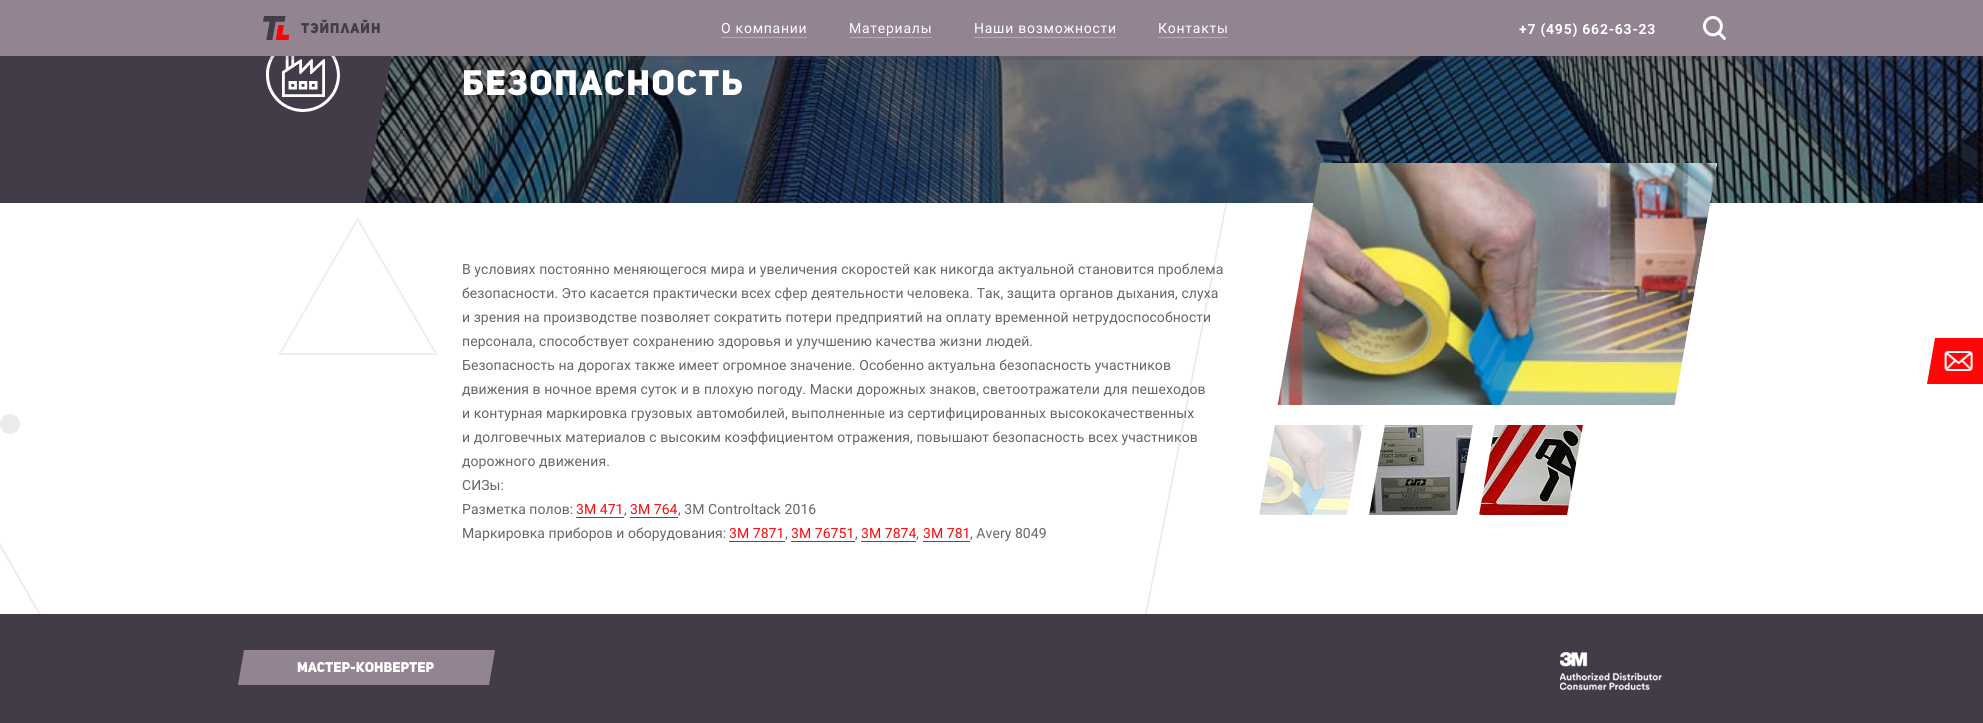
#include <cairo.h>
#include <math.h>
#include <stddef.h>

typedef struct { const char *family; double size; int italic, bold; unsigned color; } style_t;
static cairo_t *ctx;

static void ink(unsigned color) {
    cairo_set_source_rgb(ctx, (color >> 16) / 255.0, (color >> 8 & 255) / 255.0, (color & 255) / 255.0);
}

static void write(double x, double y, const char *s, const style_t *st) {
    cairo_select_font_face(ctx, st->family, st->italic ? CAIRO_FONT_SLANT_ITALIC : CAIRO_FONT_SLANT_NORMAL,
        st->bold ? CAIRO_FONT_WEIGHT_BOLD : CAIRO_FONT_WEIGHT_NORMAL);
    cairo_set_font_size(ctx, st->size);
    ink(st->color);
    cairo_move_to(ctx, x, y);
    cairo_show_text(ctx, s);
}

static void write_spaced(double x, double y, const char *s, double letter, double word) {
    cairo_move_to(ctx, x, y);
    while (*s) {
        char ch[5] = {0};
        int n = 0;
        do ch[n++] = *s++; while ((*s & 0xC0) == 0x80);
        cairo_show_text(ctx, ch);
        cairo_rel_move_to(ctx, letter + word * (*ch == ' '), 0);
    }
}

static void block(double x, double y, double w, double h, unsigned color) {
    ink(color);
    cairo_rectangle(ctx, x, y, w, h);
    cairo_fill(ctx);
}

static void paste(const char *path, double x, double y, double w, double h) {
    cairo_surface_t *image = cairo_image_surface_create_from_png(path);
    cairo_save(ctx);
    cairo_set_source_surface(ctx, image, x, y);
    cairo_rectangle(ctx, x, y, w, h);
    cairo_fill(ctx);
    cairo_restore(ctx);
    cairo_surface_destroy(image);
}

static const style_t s1 = {"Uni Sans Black", 14, 0, 0, 0xffffff};

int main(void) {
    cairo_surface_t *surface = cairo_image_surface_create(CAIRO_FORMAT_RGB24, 1983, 723);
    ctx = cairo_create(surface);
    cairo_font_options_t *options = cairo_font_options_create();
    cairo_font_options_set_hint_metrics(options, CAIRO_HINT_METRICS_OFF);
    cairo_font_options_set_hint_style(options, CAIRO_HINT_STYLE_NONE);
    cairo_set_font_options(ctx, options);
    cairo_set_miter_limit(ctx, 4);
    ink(0xffffff);
    cairo_paint(ctx);
    ink(0xececec);
    cairo_new_path(ctx);
    cairo_move_to(ctx, 988, 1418);
    cairo_line_to(ctx, 990, 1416);
    cairo_line_to(ctx, 1442, -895);
    cairo_line_to(ctx, 1440, -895);
    cairo_close_path(ctx);
    cairo_fill(ctx);
    paste("pic3.png", 365, 56, 1618, 147);
    ink(0x423c49);
    cairo_new_path(ctx);
    cairo_move_to(ctx, -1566, -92);
    cairo_line_to(ctx, 418, -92);
    cairo_line_to(ctx, 365, 203);
    cairo_line_to(ctx, -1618, 203);
    cairo_close_path(ctx);
    cairo_fill(ctx);
    paste("pic4.png", 266, 56, 74, 56);
    cairo_rectangle(ctx, -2, -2, 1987, 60);
    cairo_set_source_rgba(ctx, 0.259, 0.235, 0.286, 0.2);
    cairo_set_line_width(ctx, 4);
    cairo_stroke(ctx);
    block(0, 0, 1983, 56, 0x928490);
    paste("pic1.png", 263, 16, 26, 24);
    cairo_select_font_face(ctx, "Uni Sans Black", CAIRO_FONT_SLANT_NORMAL, CAIRO_FONT_WEIGHT_NORMAL);
    cairo_set_font_size(ctx, 14);
    ink(0x423c49);
    write_spaced(301, 33, "тэйплайн", 1, 0);
    block(721, 37, 86, 1, 0xb4aab2);
    cairo_select_font_face(ctx, "Roboto", CAIRO_FONT_SLANT_NORMAL, CAIRO_FONT_WEIGHT_NORMAL);
    ink(0xffffff);
    write_spaced(721, 33, "О компании", 0.75, 0);
    block(849, 37, 83, 1, 0xb4aab2);
    ink(0xffffff);
    write_spaced(849, 33, "Материалы", 0.75, 0);
    block(974, 37, 142, 1, 0xb4aab2);
    ink(0xffffff);
    write_spaced(974, 33, "Наши возможности", 0.75, 0);
    block(1158, 37, 70, 1, 0xb4aab2);
    ink(0xffffff);
    write_spaced(1158, 33, "Контакты", 0.75, 0);
    cairo_select_font_face(ctx, "Roboto", CAIRO_FONT_SLANT_NORMAL, CAIRO_FONT_WEIGHT_BOLD);
    write_spaced(1519, 34, "+7 (495) 662-63-23", 0.75, 0);
    paste("pic2.png", 1703, 16, 23, 24);
    ink(0xececec);
    cairo_new_path(ctx);
    cairo_move_to(ctx, 0, 547);
    cairo_line_to(ctx, 381, 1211);
    cairo_line_to(ctx, 382, 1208);
    cairo_line_to(ctx, 0, 543);
    cairo_close_path(ctx);
    cairo_fill(ctx);
    cairo_select_font_face(ctx, "Uni Sans Black", CAIRO_FONT_SLANT_NORMAL, CAIRO_FONT_WEIGHT_NORMAL);
    cairo_set_font_size(ctx, 35);
    ink(0xffffff);
    write_spaced(462, 95, "Безопасность", 1.75, 0);
    ink(0xebebeb);
    cairo_new_path(ctx);
    cairo_arc(ctx, 10, 424, 10, 0, 2 * M_PI);
    cairo_fill(ctx);
    paste("pic5.png", 278, 217, 160, 138);
    cairo_select_font_face(ctx, "Roboto", CAIRO_FONT_SLANT_NORMAL, CAIRO_FONT_WEIGHT_NORMAL);
    cairo_set_font_size(ctx, 14);
    ink(0x666666);
    write_spaced(462, 274, "В условиях постоянно меняющегося мира и увеличения скоростей как никогда актуальной становится проблема", 0.07, 0);
    write_spaced(462, 298, "безопасности. Это касается практически всех сфер деятельности человека. Так, защита органов дыхания, слуха", 0.07, 0);
    write_spaced(462, 322, "и зрения на производстве позволяет сократить потери предприятий на оплату временной нетрудоспособности", 0.07, 0);
    write_spaced(462, 346, "персонала, способствует сохранению здоровья и улучшению качества жизни людей.", 0.07, 0);
    write_spaced(462, 370, "Безопасность на дорогах также имеет огромное значение. Особенно актуальна безопасность участников", 0.07, 0);
    write_spaced(462, 394, "движения в ночное время суток и в плохую погоду. Маски дорожных знаков, светоотражатели для пешеходов", 0.07, 0);
    write_spaced(462, 418, "и контурная маркировка грузовых автомобилей, выполненные из сертифицированных высококачественных", 0.07, 0);
    write_spaced(462, 442, "и долговечных материалов с высоким коэффициентом отражения, повышают безопасность всех участников", 0.07, 0);
    write_spaced(462, 466, "дорожного движения.", 0.07, 0);
    write_spaced(462, 490, "СИЗы:", 0.07, 0);
    write_spaced(462, 514, "Разметка полов:", 0.07, 0);
    ink(0xfe0707);
    write_spaced(576, 514, "3М 471", 0.07, 0);
    block(576, 517, 48, 1, 0xfe0707);
    ink(0x666666);
    write_spaced(624, 514, ",", 0.07, 0);
    ink(0xfe0707);
    write_spaced(630, 514, "3М 764", 0.07, 0);
    block(630, 517, 48, 1, 0xfe0707);
    ink(0x666666);
    write_spaced(678, 514, ", 3M Controltack 2016", 0.07, 0);
    write_spaced(462, 538, "Маркировка приборов и оборудования:", 0.07, 0);
    ink(0xfe0707);
    write_spaced(729, 538, "3М 7871", 0.07, 0);
    block(729, 541, 56, 1, 0xfe0707);
    ink(0x666666);
    write_spaced(785, 538, ",", 0.07, 0);
    ink(0xfe0707);
    write_spaced(791, 538, "3М 76751", 0.07, 0);
    block(791, 541, 64, 1, 0xfe0707);
    ink(0x666666);
    write_spaced(855, 538, ",", 0.07, 0);
    ink(0xfe0707);
    write_spaced(861, 538, "3М 7874", 0.07, 0);
    block(861, 541, 55, 1, 0xfe0707);
    ink(0x666666);
    write_spaced(916, 538, ",", 0.07, 0);
    ink(0xfe0707);
    write_spaced(923, 538, "3М 781", 0.07, 0);
    block(923, 541, 47, 1, 0xfe0707);
    ink(0x666666);
    write_spaced(970, 538, ", Avery 8049", 0.07, 0);
    paste("pic6.png", 1277, 163, 441, 242);
    paste("pic7.png", 1259, 425, 104, 90);
    paste("pic8.png", 1369, 425, 104, 90);
    paste("pic9.png", 1479, 425, 104, 90);
    ink(0xfe0707);
    cairo_new_path(ctx);
    cairo_move_to(ctx, 1935, 338);
    cairo_line_to(ctx, 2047, 338);
    cairo_line_to(ctx, 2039, 384);
    cairo_line_to(ctx, 1927, 384);
    cairo_close_path(ctx);
    cairo_fill(ctx);
    paste("pic10.png", 1944, 351, 29, 20);
    block(0, 614, 1983, 109, 0x423c49);
    ink(0x928490);
    cairo_new_path(ctx);
    cairo_move_to(ctx, 244, 650);
    cairo_line_to(ctx, 495, 650);
    cairo_line_to(ctx, 489, 685);
    cairo_line_to(ctx, 238, 685);
    cairo_close_path(ctx);
    cairo_fill(ctx);
    write(297, 672, "мастер-конвертер", &s1);
    paste("pic11.png", 1560, 651, 102, 40);
    cairo_surface_write_to_png(surface, "screenshot.png");
    cairo_font_options_destroy(options);
    cairo_destroy(ctx);
    cairo_surface_destroy(surface);
    return 0;
}
